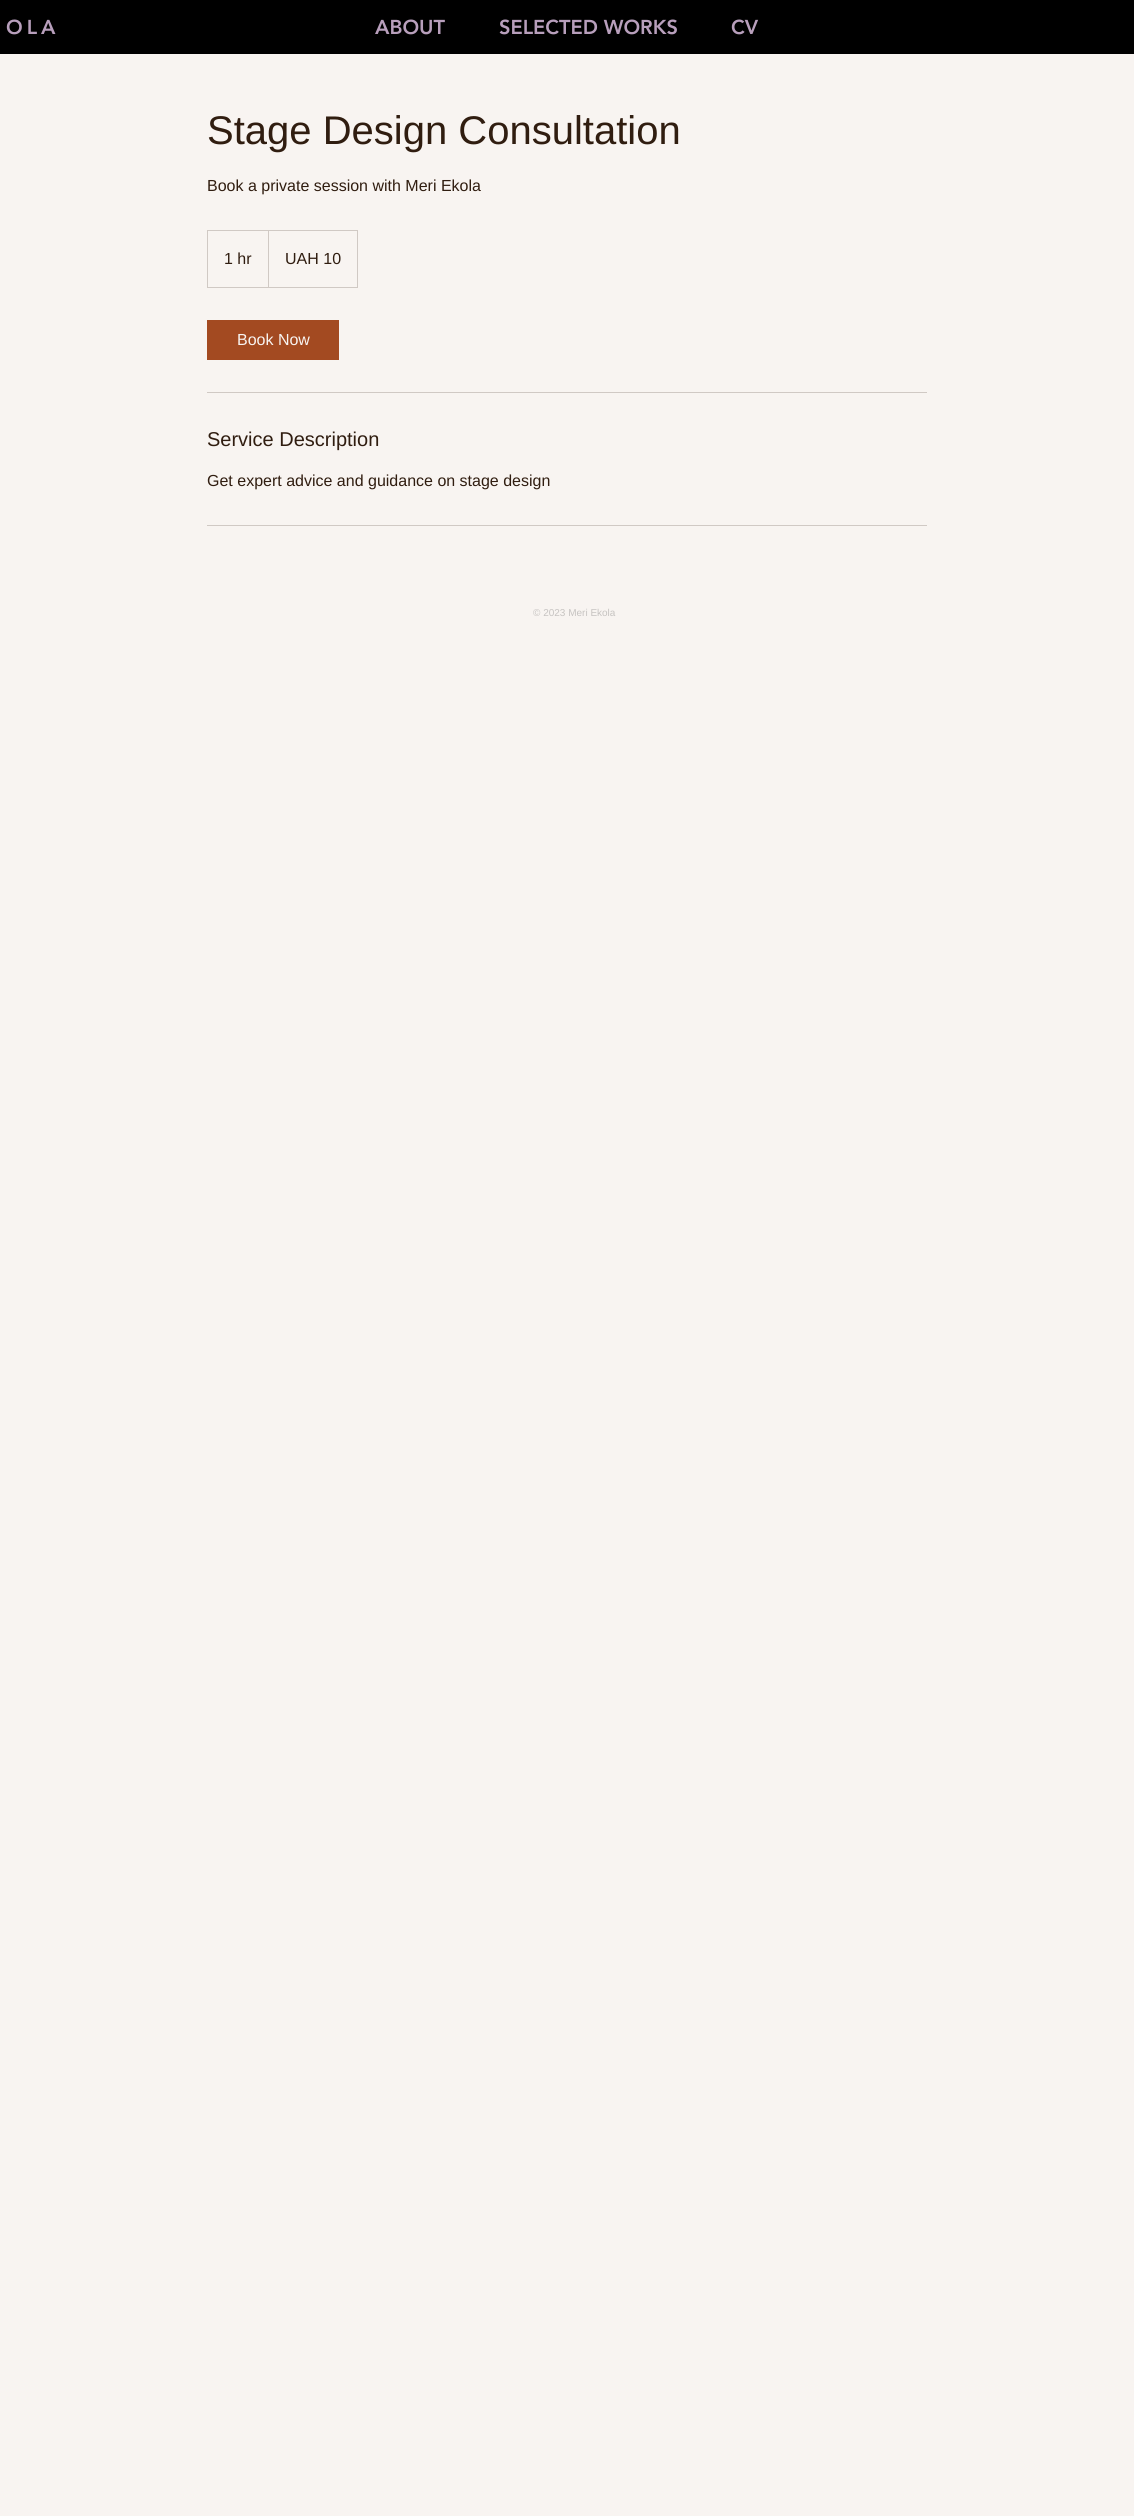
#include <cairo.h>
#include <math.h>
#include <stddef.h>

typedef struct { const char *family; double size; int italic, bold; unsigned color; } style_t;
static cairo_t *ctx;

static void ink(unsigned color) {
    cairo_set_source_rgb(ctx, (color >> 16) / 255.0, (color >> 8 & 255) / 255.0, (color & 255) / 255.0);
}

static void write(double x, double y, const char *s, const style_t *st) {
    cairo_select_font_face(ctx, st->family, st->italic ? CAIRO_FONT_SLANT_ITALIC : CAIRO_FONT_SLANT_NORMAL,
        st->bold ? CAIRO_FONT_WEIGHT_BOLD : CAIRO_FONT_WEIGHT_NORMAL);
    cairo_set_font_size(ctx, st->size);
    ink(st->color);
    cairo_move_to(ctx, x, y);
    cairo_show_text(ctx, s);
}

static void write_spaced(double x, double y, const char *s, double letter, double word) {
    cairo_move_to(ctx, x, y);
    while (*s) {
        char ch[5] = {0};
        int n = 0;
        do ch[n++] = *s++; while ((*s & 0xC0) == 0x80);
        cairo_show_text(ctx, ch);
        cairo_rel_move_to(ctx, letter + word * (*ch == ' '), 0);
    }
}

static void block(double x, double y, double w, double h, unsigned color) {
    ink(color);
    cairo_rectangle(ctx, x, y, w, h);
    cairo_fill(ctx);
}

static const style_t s1 = {"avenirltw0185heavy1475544 Black", 20, 0, 0, 0xb89fbc};
static const style_t s2 = {"Liberation Sans", 40, 0, 0, 0x301d10};
static const style_t s3 = {"Liberation Sans", 16, 0, 0, 0x301d10};
static const style_t s4 = {"Liberation Sans", 16, 0, 0, 0xf8f4f1};
static const style_t s5 = {"Liberation Sans", 20, 0, 0, 0x301d10};
static const style_t s6 = {"Liberation Sans", 10, 0, 0, 0xc6c3c1};

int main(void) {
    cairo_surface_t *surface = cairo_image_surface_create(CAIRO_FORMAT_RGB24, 1134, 2516);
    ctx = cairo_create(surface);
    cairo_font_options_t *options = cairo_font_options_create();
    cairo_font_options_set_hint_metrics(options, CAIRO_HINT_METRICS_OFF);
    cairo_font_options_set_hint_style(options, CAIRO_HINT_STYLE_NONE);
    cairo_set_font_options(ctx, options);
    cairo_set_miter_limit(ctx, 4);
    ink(0xf8f4f1);
    cairo_paint(ctx);
    block(0, 0, 1134, 54, 0x000000);
    cairo_select_font_face(ctx, "avenirltw0185heavy1475544 Black", CAIRO_FONT_SLANT_NORMAL, CAIRO_FONT_WEIGHT_NORMAL);
    cairo_set_font_size(ctx, 20);
    ink(0xb89fbc);
    write_spaced(6, 34, "OLA", 4, 0);
    write(375, 34, "ABOUT", &s1);
    write(499, 34, "SELECTED WORKS", &s1);
    write(731, 34, "CV", &s1);
    write(207, 144, "Stage Design Consultation", &s2);
    write(207, 191, "Book a private session with Meri Ekola", &s3);
    cairo_rectangle(ctx, 207.5, 230.5, 150, 57);
    ink(0xd0c9c4);
    cairo_set_line_width(ctx, 1);
    cairo_stroke(ctx);
    write(224, 264, "1 hr", &s3);
    ink(0xd0c9c4);
    cairo_new_path(ctx);
    cairo_move_to(ctx, 268, 287);
    cairo_line_to(ctx, 268, 230);
    cairo_line_to(ctx, 269, 231);
    cairo_line_to(ctx, 269, 287);
    cairo_close_path(ctx);
    cairo_fill(ctx);
    write(285, 264, "UAH 10", &s3);
    block(207, 320, 132, 40, 0xa34a21);
    write(237, 345, "Book Now", &s4);
    block(207, 392, 720, 1, 0xd0c9c4);
    write(207, 446, "Service Description", &s5);
    write(207, 486, "Get expert advice and guidance on stage design", &s3);
    block(207, 525, 720, 1, 0xd0c9c4);
    write(533, 616, "© 2023 Meri Ekola", &s6);
    cairo_surface_write_to_png(surface, "screenshot.png");
    cairo_font_options_destroy(options);
    cairo_destroy(ctx);
    cairo_surface_destroy(surface);
    return 0;
}
